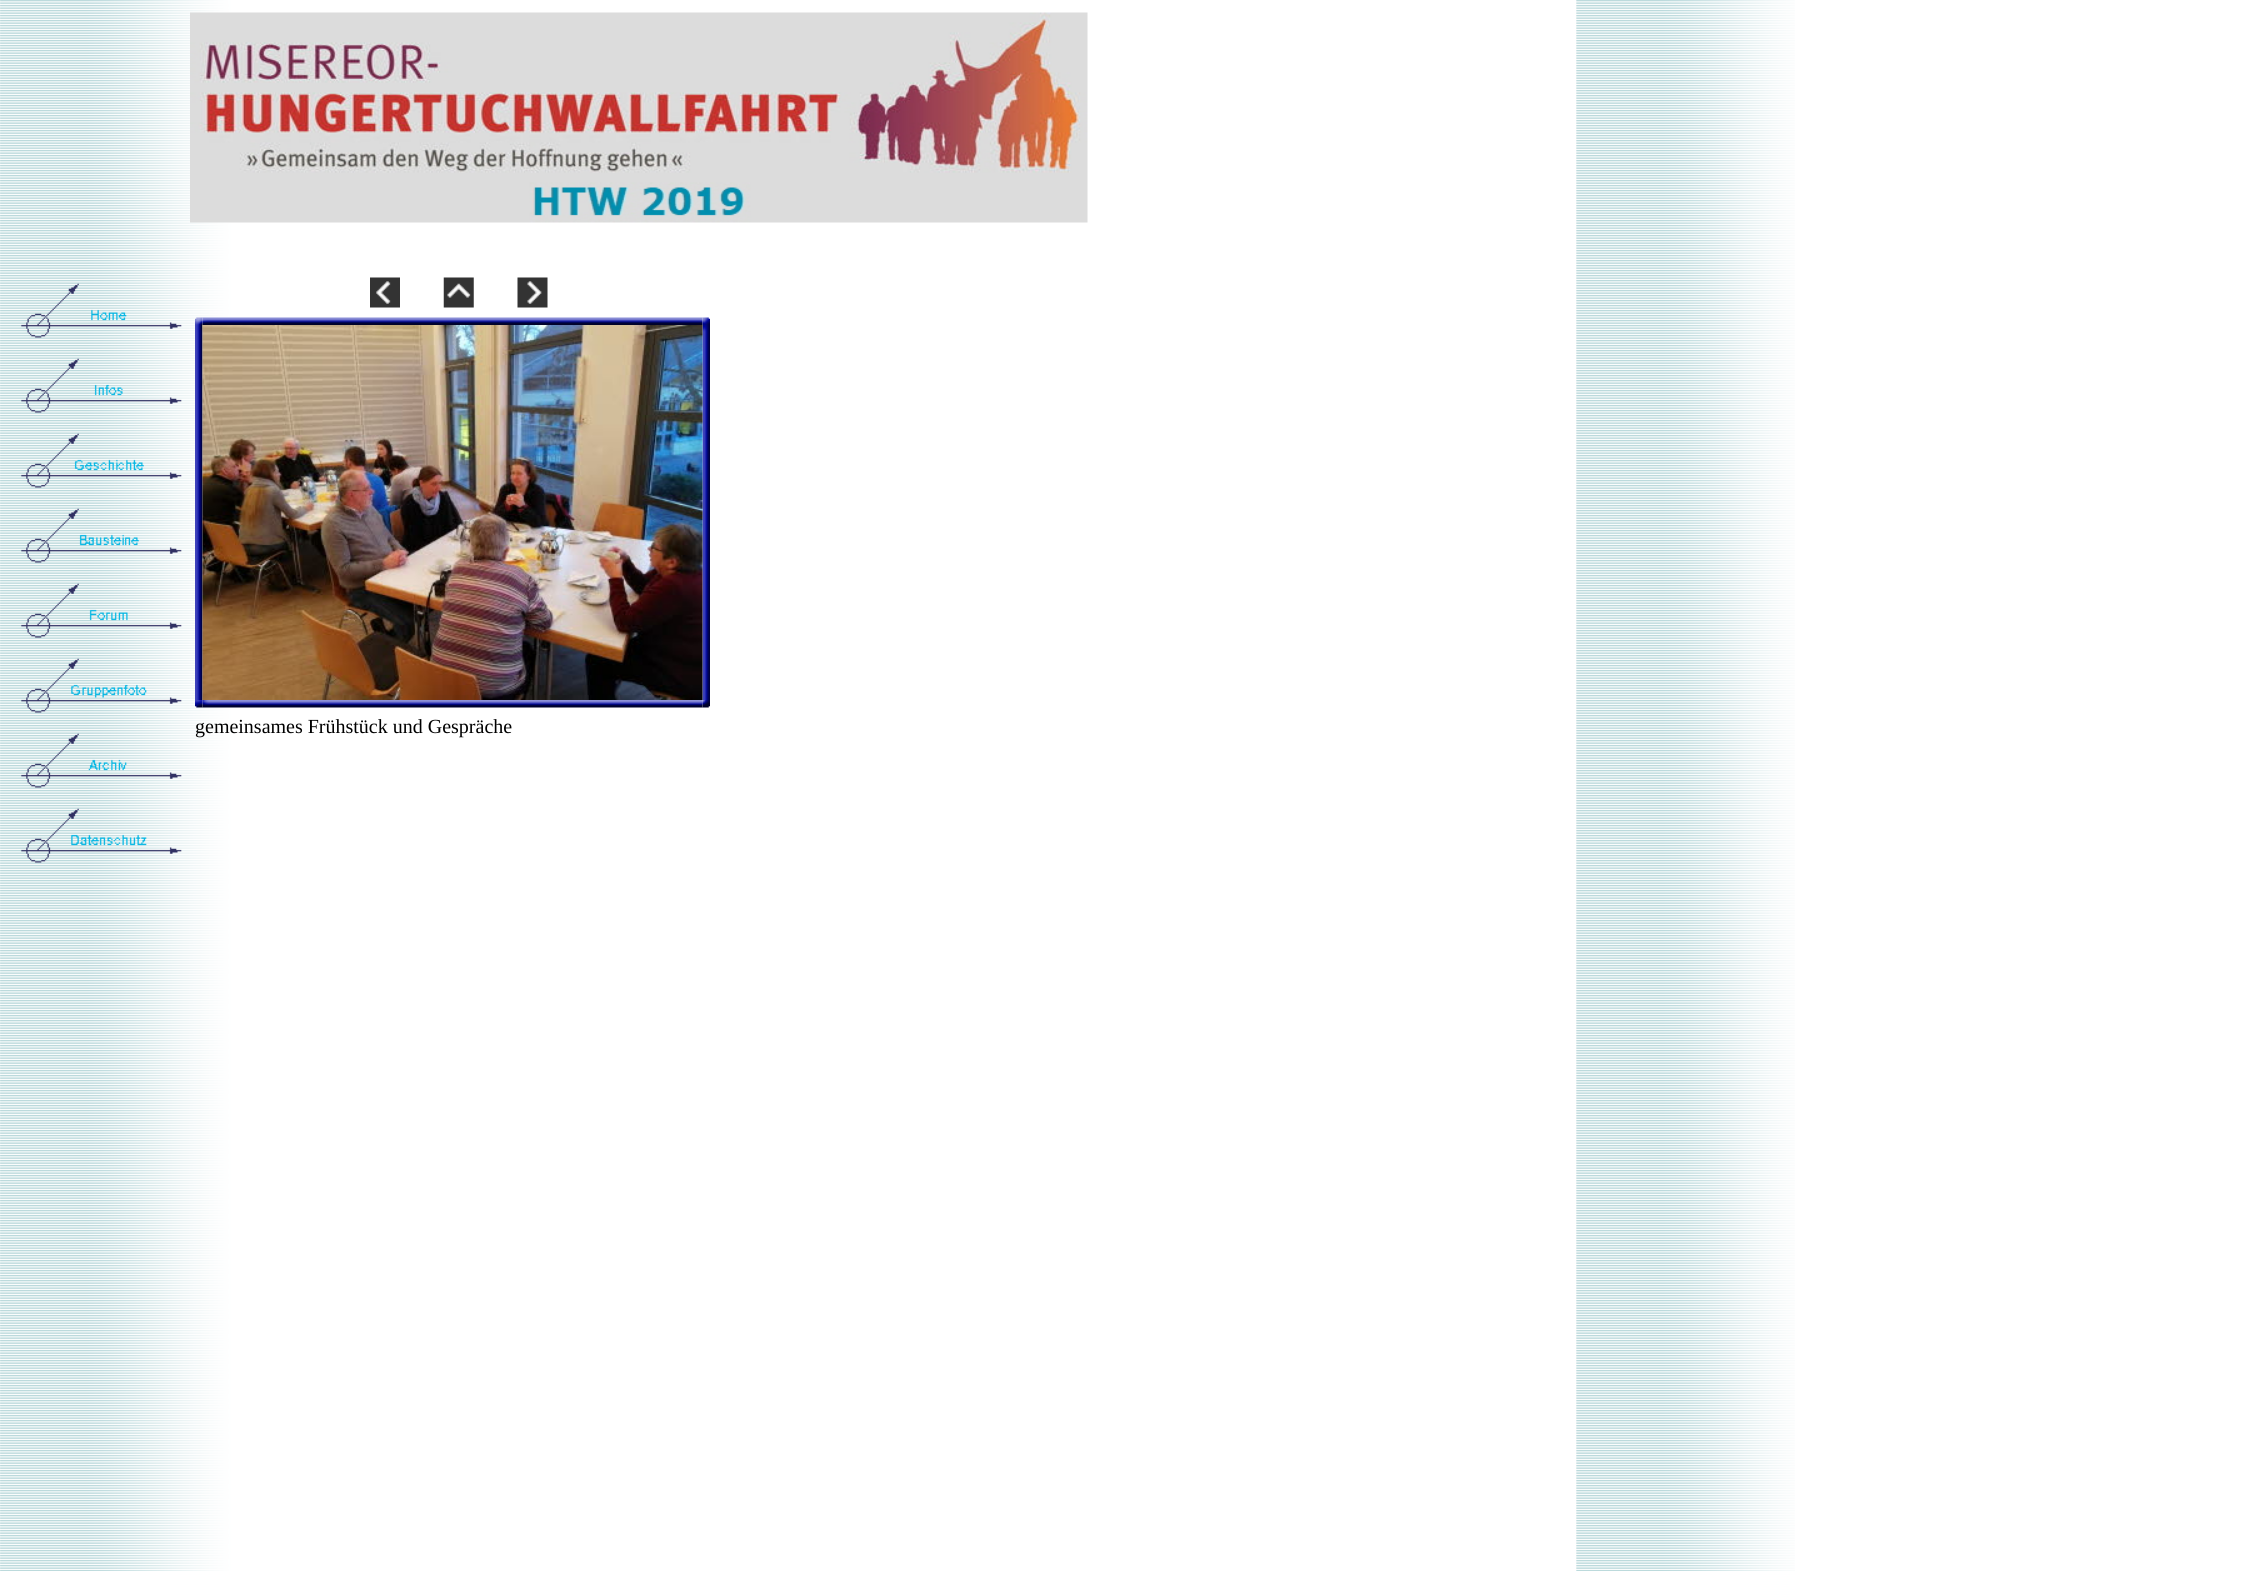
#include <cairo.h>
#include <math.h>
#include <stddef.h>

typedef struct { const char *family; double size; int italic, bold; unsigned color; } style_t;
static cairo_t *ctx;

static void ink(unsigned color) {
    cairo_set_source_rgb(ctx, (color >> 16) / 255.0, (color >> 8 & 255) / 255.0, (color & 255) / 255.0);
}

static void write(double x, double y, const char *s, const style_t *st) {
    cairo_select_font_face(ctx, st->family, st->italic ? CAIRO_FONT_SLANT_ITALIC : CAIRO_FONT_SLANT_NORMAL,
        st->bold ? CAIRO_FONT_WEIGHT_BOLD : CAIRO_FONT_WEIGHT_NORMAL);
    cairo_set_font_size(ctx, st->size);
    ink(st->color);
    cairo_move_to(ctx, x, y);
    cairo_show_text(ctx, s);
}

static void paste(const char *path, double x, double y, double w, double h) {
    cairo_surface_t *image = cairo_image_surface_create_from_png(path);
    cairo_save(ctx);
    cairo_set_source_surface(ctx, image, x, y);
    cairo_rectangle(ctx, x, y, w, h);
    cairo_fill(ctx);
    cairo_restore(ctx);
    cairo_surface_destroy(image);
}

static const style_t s1 = {"Liberation Serif", 20, 0, 0, 0x000000};

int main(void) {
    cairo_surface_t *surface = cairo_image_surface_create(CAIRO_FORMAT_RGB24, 2264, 1571);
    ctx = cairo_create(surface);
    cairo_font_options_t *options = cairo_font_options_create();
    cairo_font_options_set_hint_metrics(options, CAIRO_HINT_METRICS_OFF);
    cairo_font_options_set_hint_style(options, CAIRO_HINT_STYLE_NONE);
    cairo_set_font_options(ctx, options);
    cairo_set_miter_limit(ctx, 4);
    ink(0xffffff);
    cairo_paint(ctx);
    paste("pic1.png", 0, 0, 1795, 1571);
    paste("pic2.png", 190, 12, 898, 211);
    paste("pic3.png", 21, 283, 161, 55);
    paste("pic4.png", 21, 358, 161, 55);
    paste("pic5.png", 21, 433, 161, 55);
    paste("pic6.png", 21, 508, 161, 55);
    paste("pic7.png", 21, 583, 161, 55);
    paste("pic8.png", 21, 658, 161, 55);
    paste("pic9.png", 21, 733, 161, 55);
    paste("pic10.png", 21, 808, 161, 55);
    paste("pic11.png", 370, 277, 30, 31);
    paste("pic12.png", 443, 277, 31, 31);
    paste("pic13.png", 517, 277, 31, 31);
    paste("pic15.png", 202, 317, 501, 8);
    paste("pic14.png", 195, 317, 8, 8);
    paste("pic16.png", 702, 317, 8, 8);
    paste("pic17.png", 195, 325, 8, 375);
    paste("pic19.png", 702, 325, 8, 375);
    paste("pic18.png", 202, 325, 501, 375);
    paste("pic21.png", 202, 700, 501, 8);
    paste("pic20.png", 195, 700, 8, 8);
    paste("pic22.png", 702, 700, 8, 8);
    write(195, 733, "gemeinsames Frühstück und Gespräche", &s1);
    cairo_surface_write_to_png(surface, "screenshot.png");
    cairo_font_options_destroy(options);
    cairo_destroy(ctx);
    cairo_surface_destroy(surface);
    return 0;
}
